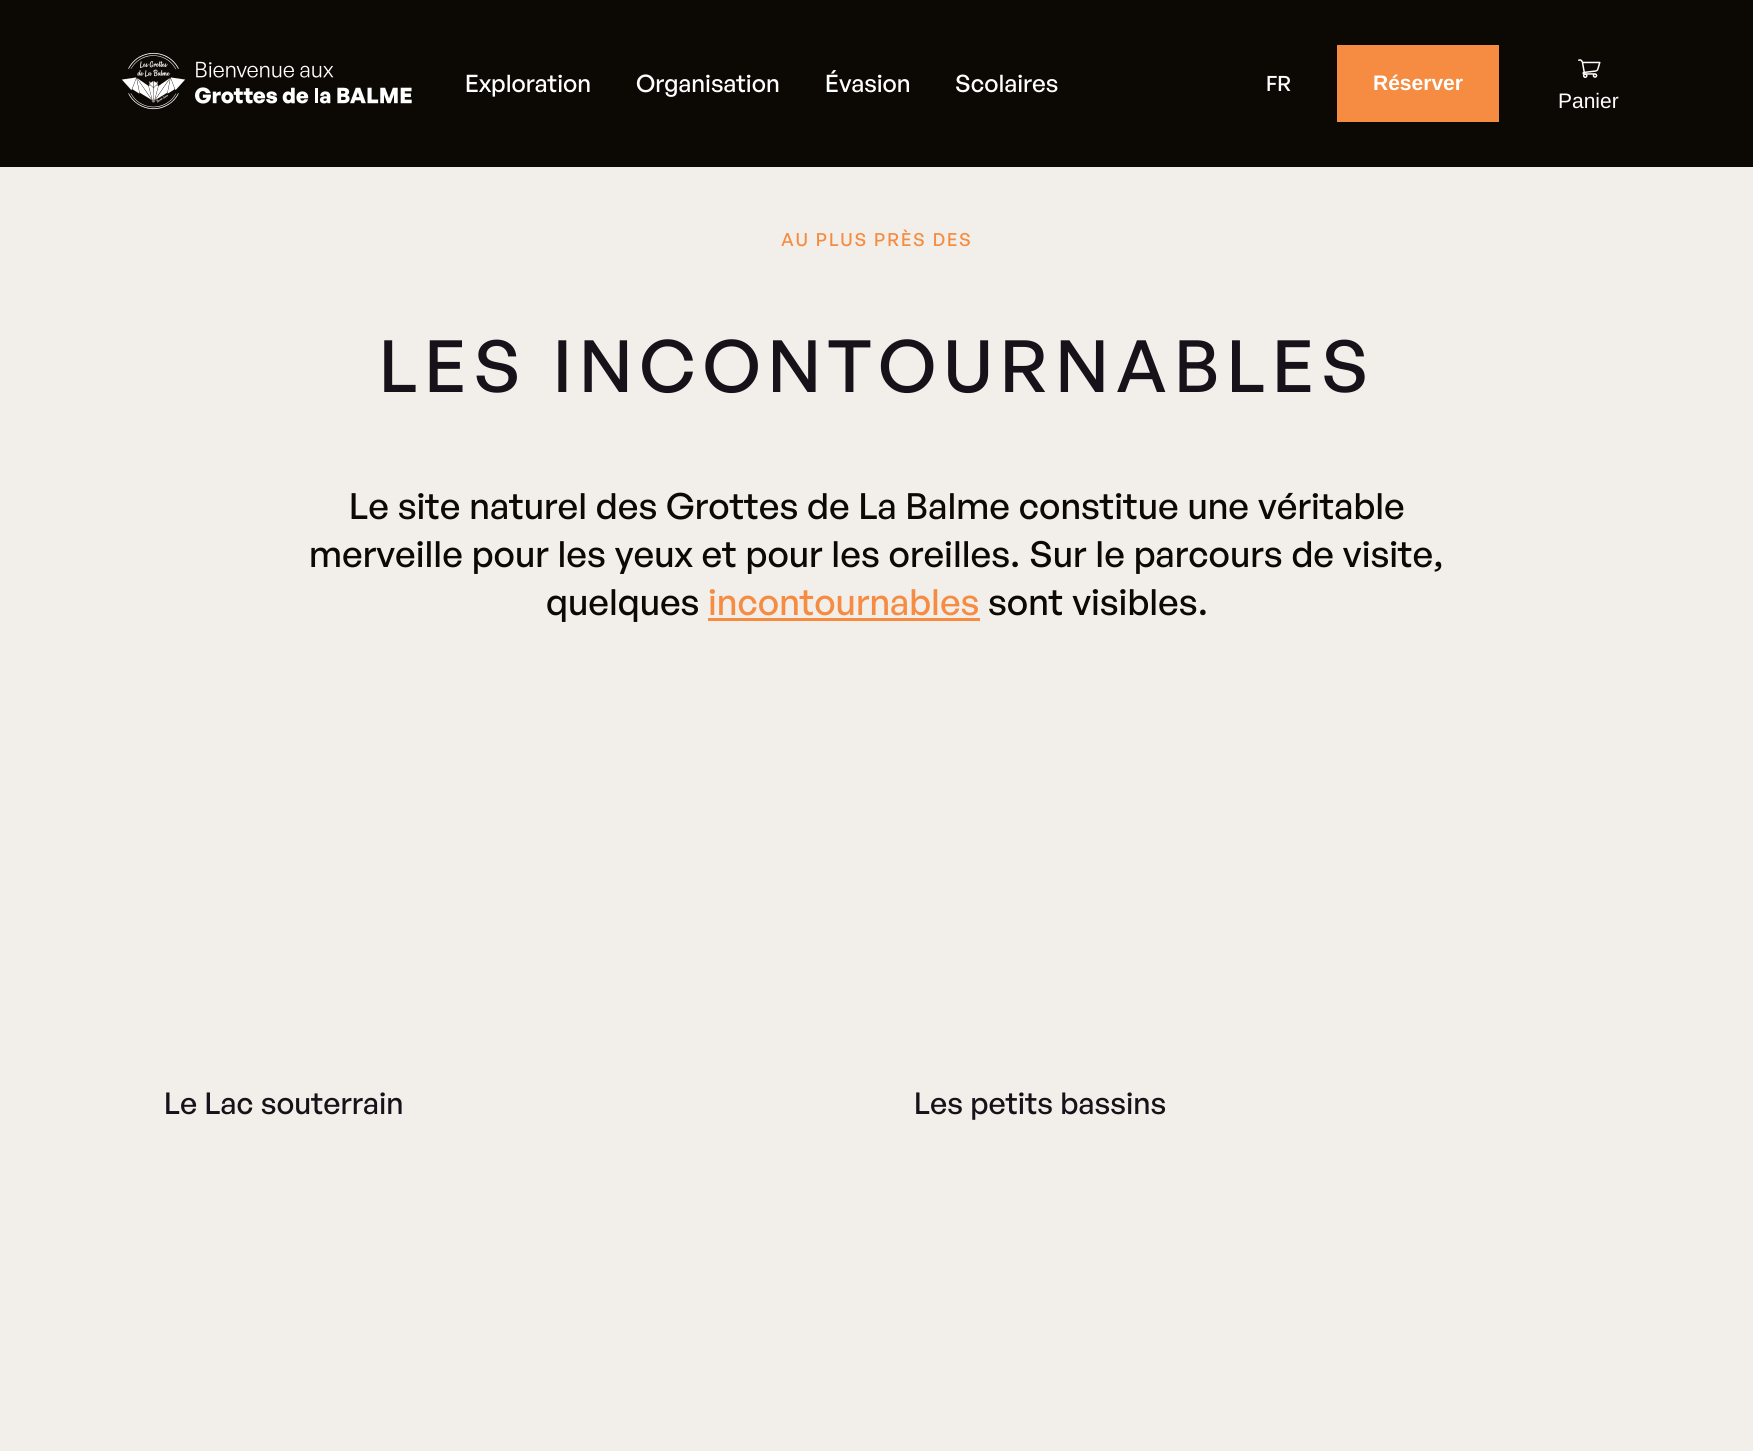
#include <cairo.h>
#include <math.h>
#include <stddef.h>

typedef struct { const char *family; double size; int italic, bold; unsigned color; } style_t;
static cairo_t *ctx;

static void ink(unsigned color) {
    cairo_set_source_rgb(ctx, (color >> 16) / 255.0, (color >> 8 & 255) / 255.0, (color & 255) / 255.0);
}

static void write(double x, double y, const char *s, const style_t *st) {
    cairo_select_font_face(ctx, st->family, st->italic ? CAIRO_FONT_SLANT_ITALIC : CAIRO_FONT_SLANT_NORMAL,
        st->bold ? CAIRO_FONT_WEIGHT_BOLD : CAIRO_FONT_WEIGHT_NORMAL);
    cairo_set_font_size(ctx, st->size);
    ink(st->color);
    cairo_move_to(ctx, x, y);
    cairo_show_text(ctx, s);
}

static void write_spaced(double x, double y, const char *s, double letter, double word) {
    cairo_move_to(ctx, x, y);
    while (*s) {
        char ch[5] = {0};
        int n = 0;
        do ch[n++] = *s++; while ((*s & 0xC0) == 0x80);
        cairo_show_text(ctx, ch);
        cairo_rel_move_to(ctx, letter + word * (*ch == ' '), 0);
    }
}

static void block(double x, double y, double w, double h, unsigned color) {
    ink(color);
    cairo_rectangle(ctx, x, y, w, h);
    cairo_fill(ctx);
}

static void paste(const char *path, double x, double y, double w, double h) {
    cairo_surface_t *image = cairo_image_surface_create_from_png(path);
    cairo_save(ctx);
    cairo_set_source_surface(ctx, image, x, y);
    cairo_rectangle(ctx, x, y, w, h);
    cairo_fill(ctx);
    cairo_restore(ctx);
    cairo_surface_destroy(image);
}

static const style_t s1 = {"General Sans Medium", 24, 0, 0, 0xffffff};
static const style_t s2 = {"General Sans Medium", 21, 0, 0, 0xffffff};
static const style_t s3 = {"Liberation Sans", 21, 0, 1, 0xffffff};
static const style_t s4 = {"Liberation Sans", 21, 0, 0, 0xffffff};
static const style_t s5 = {"General Sans Medium", 36, 0, 0, 0x0c0905};
static const style_t s6 = {"General Sans Medium", 36, 0, 0, 0xf58c42};
static const style_t s7 = {"General Sans Medium", 30, 0, 0, 0x171219};

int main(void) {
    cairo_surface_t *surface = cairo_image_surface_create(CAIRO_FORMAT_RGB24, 1753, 1451);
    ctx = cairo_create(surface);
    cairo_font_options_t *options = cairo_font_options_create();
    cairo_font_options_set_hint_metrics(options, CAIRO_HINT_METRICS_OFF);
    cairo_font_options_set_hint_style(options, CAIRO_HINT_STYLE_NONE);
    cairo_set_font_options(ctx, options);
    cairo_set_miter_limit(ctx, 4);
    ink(0xf2eeea);
    cairo_paint(ctx);
    block(0, 0, 1753, 167, 0x0c0905);
    paste("pic1.png", 121, 52, 291, 58);
    write(465, 92, "Exploration", &s1);
    write(636, 92, "Organisation", &s1);
    write(825, 92, "Évasion", &s1);
    write(955, 92, "Scolaires", &s1);
    write(1266, 91, "FR", &s2);
    block(1337, 45, 162, 77, 0xf58c42);
    write(1373, 90, "Réserver", &s3);
    paste("pic2.png", 1578, 59, 23, 19);
    write(1558, 108, "Panier", &s4);
    cairo_select_font_face(ctx, "General Sans Medium", CAIRO_FONT_SLANT_NORMAL, CAIRO_FONT_WEIGHT_NORMAL);
    cairo_set_font_size(ctx, 18);
    ink(0xf58c42);
    write_spaced(781, 246, "AU PLUS PRÈS DES", 1.75, 0);
    cairo_set_font_size(ctx, 72);
    ink(0x171219);
    write_spaced(379, 392, "LES INCONTOURNABLES", 7.25, 0);
    write(349, 519, "Le site naturel des Grottes de La Balme constitue une véritable", &s5);
    write(309, 567, "merveille pour les yeux et pour les oreilles. Sur le parcours de visite,", &s5);
    write(546, 615, "quelques", &s5);
    write(708, 615, "incontournables", &s6);
    block(708, 618, 272, 3, 0xf58c42);
    write(988, 615, "sont visibles.", &s5);
    write(164, 1114, "Le Lac souterrain", &s7);
    write(914, 1114, "Les petits bassins", &s7);
    cairo_surface_write_to_png(surface, "screenshot.png");
    cairo_font_options_destroy(options);
    cairo_destroy(ctx);
    cairo_surface_destroy(surface);
    return 0;
}
